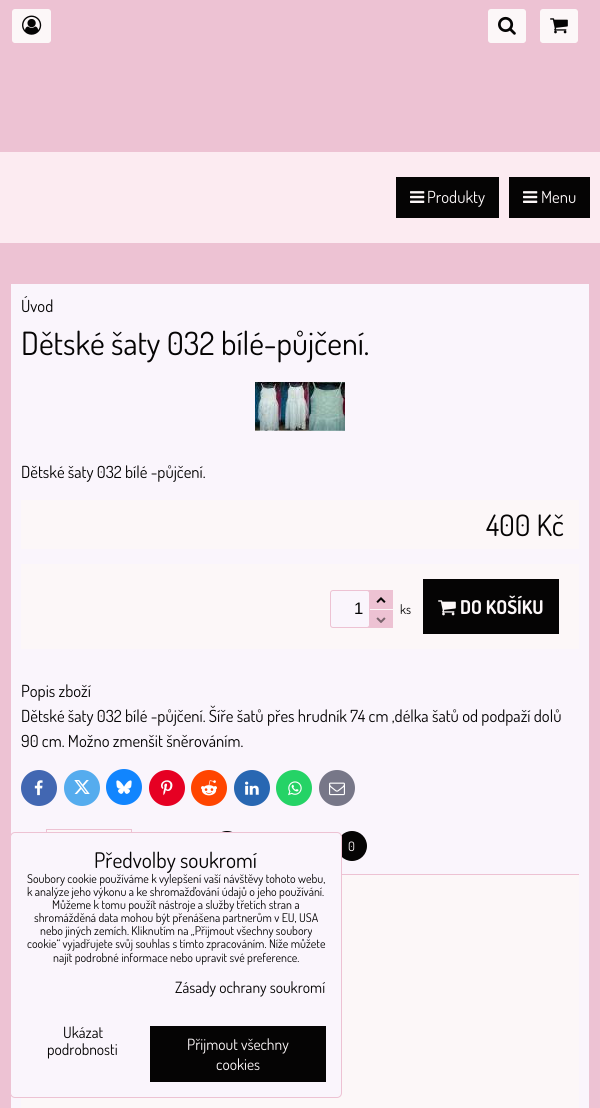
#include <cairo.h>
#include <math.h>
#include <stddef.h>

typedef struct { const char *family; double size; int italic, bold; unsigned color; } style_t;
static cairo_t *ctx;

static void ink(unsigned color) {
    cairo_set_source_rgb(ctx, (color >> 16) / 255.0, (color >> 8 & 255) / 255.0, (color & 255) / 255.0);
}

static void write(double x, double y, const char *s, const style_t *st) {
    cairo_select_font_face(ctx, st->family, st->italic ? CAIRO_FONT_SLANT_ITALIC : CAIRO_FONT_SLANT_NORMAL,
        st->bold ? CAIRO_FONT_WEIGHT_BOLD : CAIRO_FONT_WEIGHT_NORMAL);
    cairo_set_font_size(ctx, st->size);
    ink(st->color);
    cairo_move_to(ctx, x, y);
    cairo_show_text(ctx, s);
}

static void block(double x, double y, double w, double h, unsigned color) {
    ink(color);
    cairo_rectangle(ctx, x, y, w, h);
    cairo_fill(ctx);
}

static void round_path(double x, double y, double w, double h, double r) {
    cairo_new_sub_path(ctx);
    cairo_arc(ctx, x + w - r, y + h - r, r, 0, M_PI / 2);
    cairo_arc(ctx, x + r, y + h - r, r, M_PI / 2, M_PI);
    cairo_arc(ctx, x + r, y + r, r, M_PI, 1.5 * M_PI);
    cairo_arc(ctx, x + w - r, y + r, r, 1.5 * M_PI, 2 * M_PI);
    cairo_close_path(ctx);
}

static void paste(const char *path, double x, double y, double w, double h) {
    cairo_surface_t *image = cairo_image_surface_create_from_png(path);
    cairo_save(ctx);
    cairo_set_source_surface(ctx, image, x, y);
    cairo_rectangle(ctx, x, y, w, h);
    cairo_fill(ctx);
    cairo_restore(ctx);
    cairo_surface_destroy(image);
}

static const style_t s1 = {"Dosis", 16.65, 0, 0, 0xfcf7f8};
static const style_t s2 = {"Dosis", 16.65, 0, 0, 0x050404};
static const style_t s3 = {"Dosis", 32, 0, 0, 0x050404};
static const style_t s4 = {"Dosis", 29.5, 0, 0, 0x050404};
static const style_t s5 = {"Liberation Sans", 16.65, 0, 0, 0x050404};
static const style_t s6 = {"Dosis", 13, 0, 0, 0x050404};
static const style_t s7 = {"Dosis", 19, 0, 1, 0xfcf7f8};
static const style_t s8 = {"Dosis", 13, 0, 0, 0xfcf7f8};
static const style_t s9 = {"Dosis", 21.5, 0, 0, 0x050404};
static const style_t s10 = {"Dosis", 12, 0, 0, 0x050404};
static const style_t s11 = {"Dosis", 15.5, 0, 0, 0x050404};
static const style_t s12 = {"Dosis", 15.5, 0, 0, 0xfcf7f8};

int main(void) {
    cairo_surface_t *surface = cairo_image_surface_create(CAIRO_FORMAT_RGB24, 600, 1108);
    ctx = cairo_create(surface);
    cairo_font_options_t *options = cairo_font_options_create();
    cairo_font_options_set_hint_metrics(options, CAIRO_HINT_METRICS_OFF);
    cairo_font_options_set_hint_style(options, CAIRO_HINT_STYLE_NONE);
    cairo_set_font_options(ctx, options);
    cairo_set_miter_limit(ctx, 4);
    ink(0xedc2d3);
    cairo_paint(ctx);
    ink(0xfcf7f8);
    round_path(11, 8, 41, 36, 4);
    cairo_fill_preserve(ctx);
    ink(0xedc2d3);
    cairo_stroke(ctx);
    paste("pic1.png", 22, 15, 20, 20);
    ink(0xfcf7f8);
    round_path(487, 8, 40, 36, 4);
    cairo_fill_preserve(ctx);
    ink(0xedc2d3);
    cairo_stroke(ctx);
    paste("pic2.png", 498, 16, 18, 19);
    ink(0xfcf7f8);
    round_path(539, 8, 40, 36, 4);
    cairo_fill_preserve(ctx);
    ink(0xedc2d3);
    cairo_stroke(ctx);
    paste("pic3.png", 550, 18, 18, 16);
    block(0, 152, 600, 91, 0xfcebf1);
    block(396, 177, 103, 41, 0x050404);
    paste("pic4.png", 410, 191, 15, 12);
    write(427, 203, "Produkty", &s1);
    block(509, 177, 81, 41, 0x050404);
    paste("pic4.png", 523, 191, 15, 12);
    write(541, 203, "Menu", &s1);
    block(11, 284, 578, 824, 0xfaf5fc);
    write(21, 312, "Úvod", &s2);
    write(21, 355, "Dětské šaty 032 bílé-půjčení.", &s3);
    paste("pic5.png", 255, 382, 90, 49);
    write(21, 478, "Dětské šaty 032 bílé -půjčení.", &s2);
    block(21, 500, 558, 49, 0xfcf7f8);
    write(486, 536, "400 Kč", &s4);
    block(21, 564, 558, 85, 0xfcf7f8);
    block(367, 590, 26, 38, 0xedc2d3);
    ink(0xfaf5fc);
    round_path(330.5, 590.5, 39, 37, 2.5);
    cairo_fill_preserve(ctx);
    ink(0xedc2d3);
    cairo_set_line_width(ctx, 1);
    cairo_stroke(ctx);
    write(354, 614, "1", &s5);
    paste("pic6.png", 376, 597, 10, 6);
    block(370, 609, 23, 1, 0xfcf7f8);
    paste("pic7.png", 376, 617, 10, 6);
    write(400, 614, "ks", &s6);
    block(423, 579, 136, 55, 0x050404);
    paste("pic8.png", 438, 600, 18, 16);
    write(460, 614, "DO KOŠÍKU", &s7);
    write(21, 697, "Popis zboží", &s2);
    write(21, 722, "Dětské šaty 032 bílé -půjčení. Šíře šatů přes hrudník 74 cm ,délka šatů od podpaží dolů", &s2);
    write(21, 747, "90 cm. Možno zmenšit šněrováním.", &s2);
    ink(0x4267b2);
    cairo_new_path(ctx);
    cairo_arc(ctx, 39, 788, 18, 0, 2 * M_PI);
    cairo_fill(ctx);
    paste("pic9.png", 34, 780, 9, 16);
    ink(0x55acee);
    cairo_arc(ctx, 82, 788, 18, 0, 2 * M_PI);
    cairo_fill(ctx);
    paste("pic10.png", 74, 780, 16, 14);
    ink(0x1185fe);
    cairo_arc(ctx, 124, 787, 18, 0, 2 * M_PI);
    cairo_fill(ctx);
    paste("pic11.png", 116, 780, 16, 14);
    ink(0xe60023);
    cairo_arc(ctx, 167, 788, 18, 0, 2 * M_PI);
    cairo_fill(ctx);
    paste("pic12.png", 161, 780, 12, 16);
    ink(0xff4500);
    cairo_arc(ctx, 209, 788, 18, 0, 2 * M_PI);
    cairo_fill(ctx);
    paste("pic13.png", 201, 780, 16, 16);
    ink(0x2867b2);
    cairo_arc(ctx, 252, 788, 18, 0, 2 * M_PI);
    cairo_fill(ctx);
    paste("pic14.png", 245, 781, 14, 14);
    ink(0x25d366);
    cairo_arc(ctx, 294, 788, 18, 0, 2 * M_PI);
    cairo_fill(ctx);
    paste("pic15.png", 288, 781, 14, 15);
    ink(0x777788);
    cairo_arc(ctx, 337, 788, 18, 0, 2 * M_PI);
    cairo_fill(ctx);
    paste("pic16.png", 329, 782, 16, 14);
    block(47, 830, 84, 2, 0xfcf7f8);
    block(46, 829, 86, 1, 0xedc2d3);
    block(131, 829, 1, 3, 0xedc2d3);
    block(46, 829, 1, 3, 0xedc2d3);
    ink(0x050404);
    cairo_arc(ctx, 227, 846, 15, 0, 2 * M_PI);
    cairo_fill(ctx);
    cairo_arc(ctx, 352, 846, 15, 0, 2 * M_PI);
    cairo_fill(ctx);
    write(348, 851, "0", &s8);
    block(21, 875, 558, 233, 0xfcf7f8);
    block(342, 874, 237, 1, 0xedc2d3);
    ink(0xfaf5fc);
    round_path(10.5, 832.5, 331, 265, 4.5);
    cairo_fill_preserve(ctx);
    ink(0xedc2d3);
    cairo_stroke(ctx);
    write(94, 868, "Předvolby soukromí", &s9);
    write(27, 883, "Soubory cookie používáme k vylepšení vaší návštěvy tohoto webu,", &s10);
    write(27, 896, "k analýze jeho výkonu a ke shromažďování údajů o jeho používání.", &s10);
    write(52, 909, "Můžeme k tomu použít nástroje a služby třetích stran a", &s10);
    write(34, 922, "shromážděná data mohou být přenášena partnerům v EU, USA", &s10);
    write(40, 935, "nebo jiných zemích. Kliknutím na „Přijmout všechny soubory", &s10);
    write(27, 948, "cookie“ vyjadřujete svůj souhlas s tímto zpracováním. Níže můžete", &s10);
    write(53, 962, "najít podrobné informace nebo upravit své preference.", &s10);
    write(175, 993, "Zásady ochrany soukromí", &s11);
    write(63, 1038, "Ukázat", &s11);
    write(47, 1055, "podrobnosti", &s11);
    block(150, 1026, 176, 56, 0x050404);
    write(187, 1050, "Přijmout všechny", &s12);
    write(216, 1070, "cookies", &s12);
    cairo_surface_write_to_png(surface, "screenshot.png");
    cairo_font_options_destroy(options);
    cairo_destroy(ctx);
    cairo_surface_destroy(surface);
    return 0;
}
